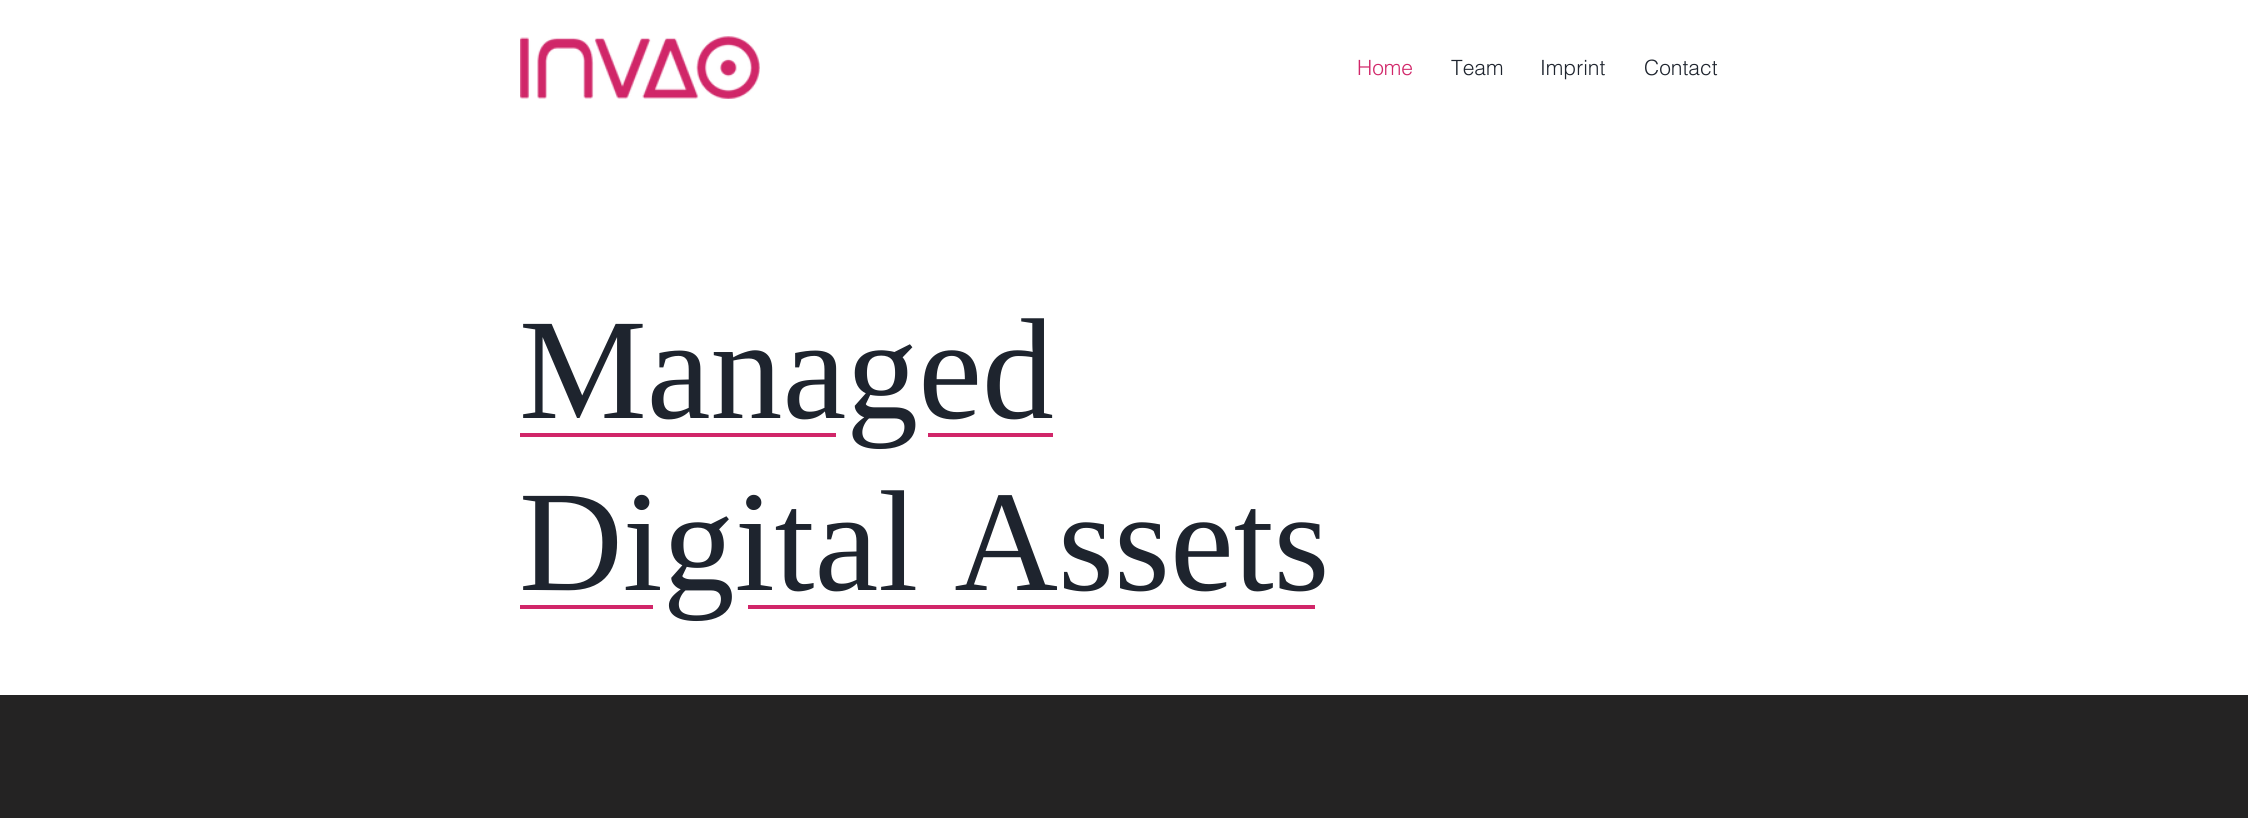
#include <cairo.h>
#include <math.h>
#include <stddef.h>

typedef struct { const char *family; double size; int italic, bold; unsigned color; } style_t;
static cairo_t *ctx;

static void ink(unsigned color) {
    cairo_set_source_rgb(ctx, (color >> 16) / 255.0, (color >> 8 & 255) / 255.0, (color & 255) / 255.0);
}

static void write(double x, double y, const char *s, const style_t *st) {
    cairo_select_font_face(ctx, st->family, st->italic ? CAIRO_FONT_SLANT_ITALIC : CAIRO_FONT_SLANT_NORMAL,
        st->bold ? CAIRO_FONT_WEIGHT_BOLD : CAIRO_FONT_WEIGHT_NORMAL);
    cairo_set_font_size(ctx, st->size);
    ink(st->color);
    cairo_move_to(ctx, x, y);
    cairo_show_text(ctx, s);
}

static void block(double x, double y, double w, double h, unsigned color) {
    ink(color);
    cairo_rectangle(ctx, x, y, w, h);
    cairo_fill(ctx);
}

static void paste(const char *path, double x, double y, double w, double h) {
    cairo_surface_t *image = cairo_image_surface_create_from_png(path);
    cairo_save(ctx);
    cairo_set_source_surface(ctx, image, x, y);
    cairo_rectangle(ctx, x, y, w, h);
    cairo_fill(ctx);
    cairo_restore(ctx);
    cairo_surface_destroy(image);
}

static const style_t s1 = {"helvetica Light", 21, 0, 0, 0xd12669};
static const style_t s2 = {"helvetica Light", 21, 0, 0, 0x1e242e};
static const style_t s3 = {"Liberation Serif", 143.75, 0, 0, 0x1e242e};

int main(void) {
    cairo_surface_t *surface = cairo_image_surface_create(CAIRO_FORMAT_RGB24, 2248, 818);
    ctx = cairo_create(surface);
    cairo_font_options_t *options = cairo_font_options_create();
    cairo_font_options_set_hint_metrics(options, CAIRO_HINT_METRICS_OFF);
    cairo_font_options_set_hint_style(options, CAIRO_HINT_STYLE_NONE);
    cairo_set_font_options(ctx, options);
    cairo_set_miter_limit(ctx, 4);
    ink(0xffffff);
    cairo_paint(ctx);
    paste("pic1.png", 520, 36, 240, 63);
    write(1357, 75, "Home", &s1);
    write(1451, 75, "Team", &s2);
    write(1540, 75, "Imprint", &s2);
    write(1644, 75, "Contact", &s2);
    block(928, 433, 125, 4, 0xd12669);
    write(519, 418, "Managed", &s3);
    write(519, 590, "Digital Assets", &s3);
    block(520, 433, 316, 4, 0xd12669);
    block(520, 605, 133, 4, 0xd12669);
    block(748, 605, 567, 4, 0xd12669);
    block(0, 695, 2248, 123, 0x242323);
    cairo_surface_write_to_png(surface, "screenshot.png");
    cairo_font_options_destroy(options);
    cairo_destroy(ctx);
    cairo_surface_destroy(surface);
    return 0;
}
